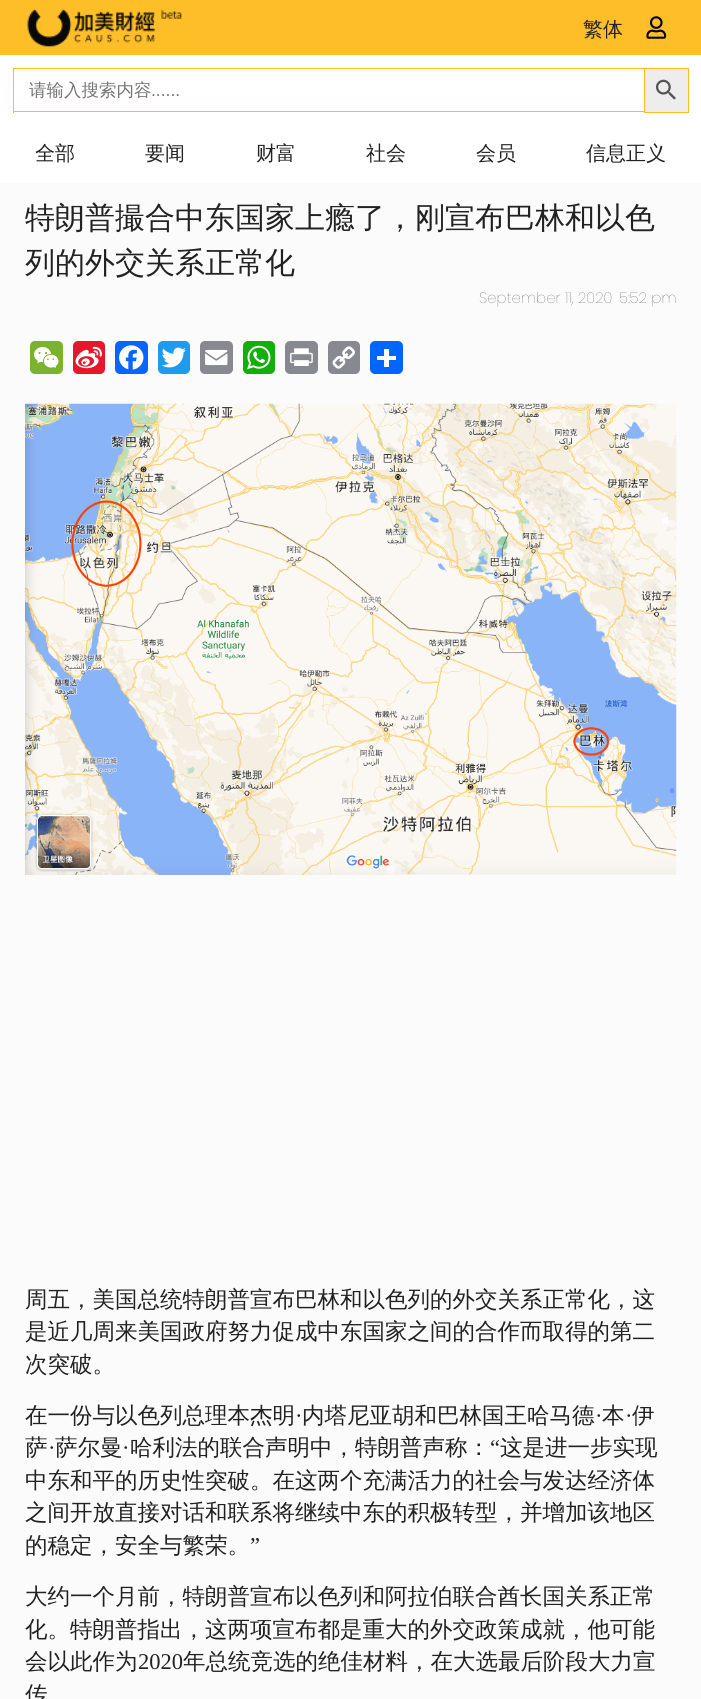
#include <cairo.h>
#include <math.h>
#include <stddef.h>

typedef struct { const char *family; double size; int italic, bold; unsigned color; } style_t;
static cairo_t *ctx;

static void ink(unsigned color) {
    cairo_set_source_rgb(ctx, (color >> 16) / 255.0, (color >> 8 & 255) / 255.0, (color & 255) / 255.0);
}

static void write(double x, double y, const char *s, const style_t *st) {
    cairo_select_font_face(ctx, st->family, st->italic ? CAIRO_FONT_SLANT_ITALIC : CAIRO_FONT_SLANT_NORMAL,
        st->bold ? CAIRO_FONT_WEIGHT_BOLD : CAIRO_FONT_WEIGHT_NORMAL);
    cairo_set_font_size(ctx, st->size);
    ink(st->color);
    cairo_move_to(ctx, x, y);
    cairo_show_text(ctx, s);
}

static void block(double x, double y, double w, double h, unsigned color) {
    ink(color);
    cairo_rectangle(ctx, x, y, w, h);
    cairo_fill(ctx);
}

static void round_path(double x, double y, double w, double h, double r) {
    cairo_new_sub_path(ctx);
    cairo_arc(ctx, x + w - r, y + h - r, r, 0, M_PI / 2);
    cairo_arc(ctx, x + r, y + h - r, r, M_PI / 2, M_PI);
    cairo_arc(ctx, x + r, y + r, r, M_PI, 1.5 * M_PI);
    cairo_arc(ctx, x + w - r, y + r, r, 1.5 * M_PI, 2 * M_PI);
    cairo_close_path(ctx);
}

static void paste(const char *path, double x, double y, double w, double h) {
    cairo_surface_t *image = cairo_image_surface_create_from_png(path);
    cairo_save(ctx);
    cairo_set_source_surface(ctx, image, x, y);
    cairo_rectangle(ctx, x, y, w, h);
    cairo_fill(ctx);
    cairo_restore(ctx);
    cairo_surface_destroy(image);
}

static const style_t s1 = {"WenQuanYi Zen Hei Medium", 20, 0, 0, 0x222222};
static const style_t s2 = {"WenQuanYi Zen Hei Medium", 17.5, 0, 0, 0x757575};
static const style_t s3 = {"Liberation Sans", 17.5, 0, 0, 0x757575};
static const style_t s4 = {"WenQuanYi Zen Hei Medium", 30, 0, 0, 0x222222};
static const style_t s5 = {"Poppins ExtraLight", 15, 0, 0, 0x535353};
static const style_t s6 = {"WenQuanYi Zen Hei Medium", 22.5, 0, 0, 0x222222};
static const style_t s7 = {"Liberation Serif", 22.5, 0, 0, 0x222222};

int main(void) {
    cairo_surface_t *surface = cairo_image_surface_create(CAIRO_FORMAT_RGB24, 701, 1699);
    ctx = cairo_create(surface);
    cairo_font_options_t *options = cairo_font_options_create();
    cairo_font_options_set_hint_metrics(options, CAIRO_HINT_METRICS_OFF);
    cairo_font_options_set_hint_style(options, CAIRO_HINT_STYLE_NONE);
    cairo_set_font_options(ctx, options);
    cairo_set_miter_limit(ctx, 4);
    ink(0xffffff);
    cairo_paint(ctx);
    block(0, 0, 701, 55, 0xfdbe28);
    paste("pic1.png", 27, 9, 155, 38);
    write(583, 36, "繁体", &s1);
    paste("pic2.png", 646, 16, 21, 23);
    block(13, 68, 631, 1, 0xfdbe1c);
    block(13, 111, 631, 1, 0xfdbe1c);
    block(13, 68, 1, 45, 0xfdbe1c);
    write(29, 96, "请输入搜索内容", &s2);
    write(151, 96, "......", &s3);
    ink(0xededed);
    cairo_rectangle(ctx, 644.5, 68.5, 44, 44);
    cairo_fill_preserve(ctx);
    ink(0xfdbe1c);
    cairo_set_line_width(ctx, 1);
    cairo_stroke(ctx);
    paste("pic3.png", 655, 79, 21, 21);
    write(35, 160, "全部", &s1);
    write(145, 160, "要闻", &s1);
    write(256, 160, "财富", &s1);
    write(366, 160, "社会", &s1);
    write(476, 160, "会员", &s1);
    write(586, 160, "信息正义", &s1);
    block(0, 183, 701, 1516, 0xfbfbfb);
    write(25, 228, "特朗普撮合中东国家上瘾了，刚宣布巴林和以色", &s4);
    write(25, 273, "列的外交关系正常化", &s4);
    write(479, 303, "September 11, 2020", &s5);
    write(619, 303, "5:52 pm", &s5);
    ink(0x7bb32e);
    round_path(30, 341, 33, 33, 5);
    cairo_fill(ctx);
    paste("pic4.png", 34, 347, 25, 21);
    ink(0xe6162d);
    round_path(73, 341, 32, 33, 5);
    cairo_fill(ctx);
    paste("pic5.png", 75, 346, 27, 23);
    ink(0x0866ff);
    round_path(115, 341, 33, 33, 5);
    cairo_fill(ctx);
    paste("pic6.png", 119, 345, 25, 25);
    ink(0x1d9bf0);
    round_path(158, 341, 32, 33, 5);
    cairo_fill(ctx);
    paste("pic7.png", 161, 347, 25, 21);
    ink(0x888990);
    round_path(200, 341, 33, 33, 5);
    cairo_fill(ctx);
    paste("pic8.png", 205, 349, 23, 17);
    ink(0x12af0a);
    round_path(243, 341, 32, 33, 5);
    cairo_fill(ctx);
    paste("pic9.png", 247, 345, 24, 25);
    ink(0x888990);
    round_path(285, 341, 33, 33, 5);
    cairo_fill(ctx);
    paste("pic10.png", 290, 348, 23, 18);
    round_path(328, 341, 32, 33, 5);
    cairo_fill(ctx);
    paste("pic11.png", 332, 346, 23, 23);
    ink(0x0166ff);
    round_path(370, 341, 33, 33, 5);
    cairo_fill(ctx);
    block(384, 349, 5, 18, 0xffffff);
    block(377, 356, 19, 4, 0xffffff);
    paste("pic12.png", 25, 403, 652, 472);
    write(25, 1307, "周五，美国总统特朗普宣布巴林和以色列的外交关系正常化，这", &s6);
    write(25, 1339, "是近几周来美国政府努力促成中东国家之间的合作而取得的第二", &s6);
    write(25, 1372, "次突破。", &s6);
    write(25, 1423, "在一份与以色列总理本杰明", &s6);
    write(295, 1423, "·", &s7);
    write(302, 1423, "内塔尼亚胡和巴林国王哈马德", &s6);
    write(595, 1423, "·", &s7);
    write(602, 1423, "本", &s6);
    write(625, 1423, "·", &s7);
    write(632, 1423, "伊", &s6);
    write(25, 1455, "萨", &s6);
    write(55, 1455, "萨尔曼", &s6);
    write(130, 1455, "哈利法的联合声明中，特朗普声称：", &s6);
    write(490, 1455, "“", &s7);
    write(500, 1455, "这是进一步实现", &s6);
    write(48, 1455, "·", &s7);
    write(122, 1455, "·", &s7);
    write(25, 1488, "中东和平的历史性突破。在这两个充满活力的社会与发达经济体", &s6);
    write(25, 1520, "之间开放直接对话和联系将继续中东的积极转型，并增加该地区", &s6);
    write(25, 1553, "的稳定，安全与繁荣。", &s6);
    write(250, 1553, "”", &s7);
    write(25, 1604, "大约一个月前，特朗普宣布以色列和阿拉伯联合酋长国关系正常", &s6);
    write(25, 1637, "化。特朗普指出，这两项宣布都是重大的外交政策成就，他可能", &s6);
    write(25, 1669, "会以此作为", &s6);
    write(138, 1669, "2020", &s7);
    write(183, 1669, "年总统竞选的绝佳材料，在大选最后阶段大力宣", &s6);
    write(25, 1702, "传", &s6);
    cairo_surface_write_to_png(surface, "screenshot.png");
    cairo_font_options_destroy(options);
    cairo_destroy(ctx);
    cairo_surface_destroy(surface);
    return 0;
}
